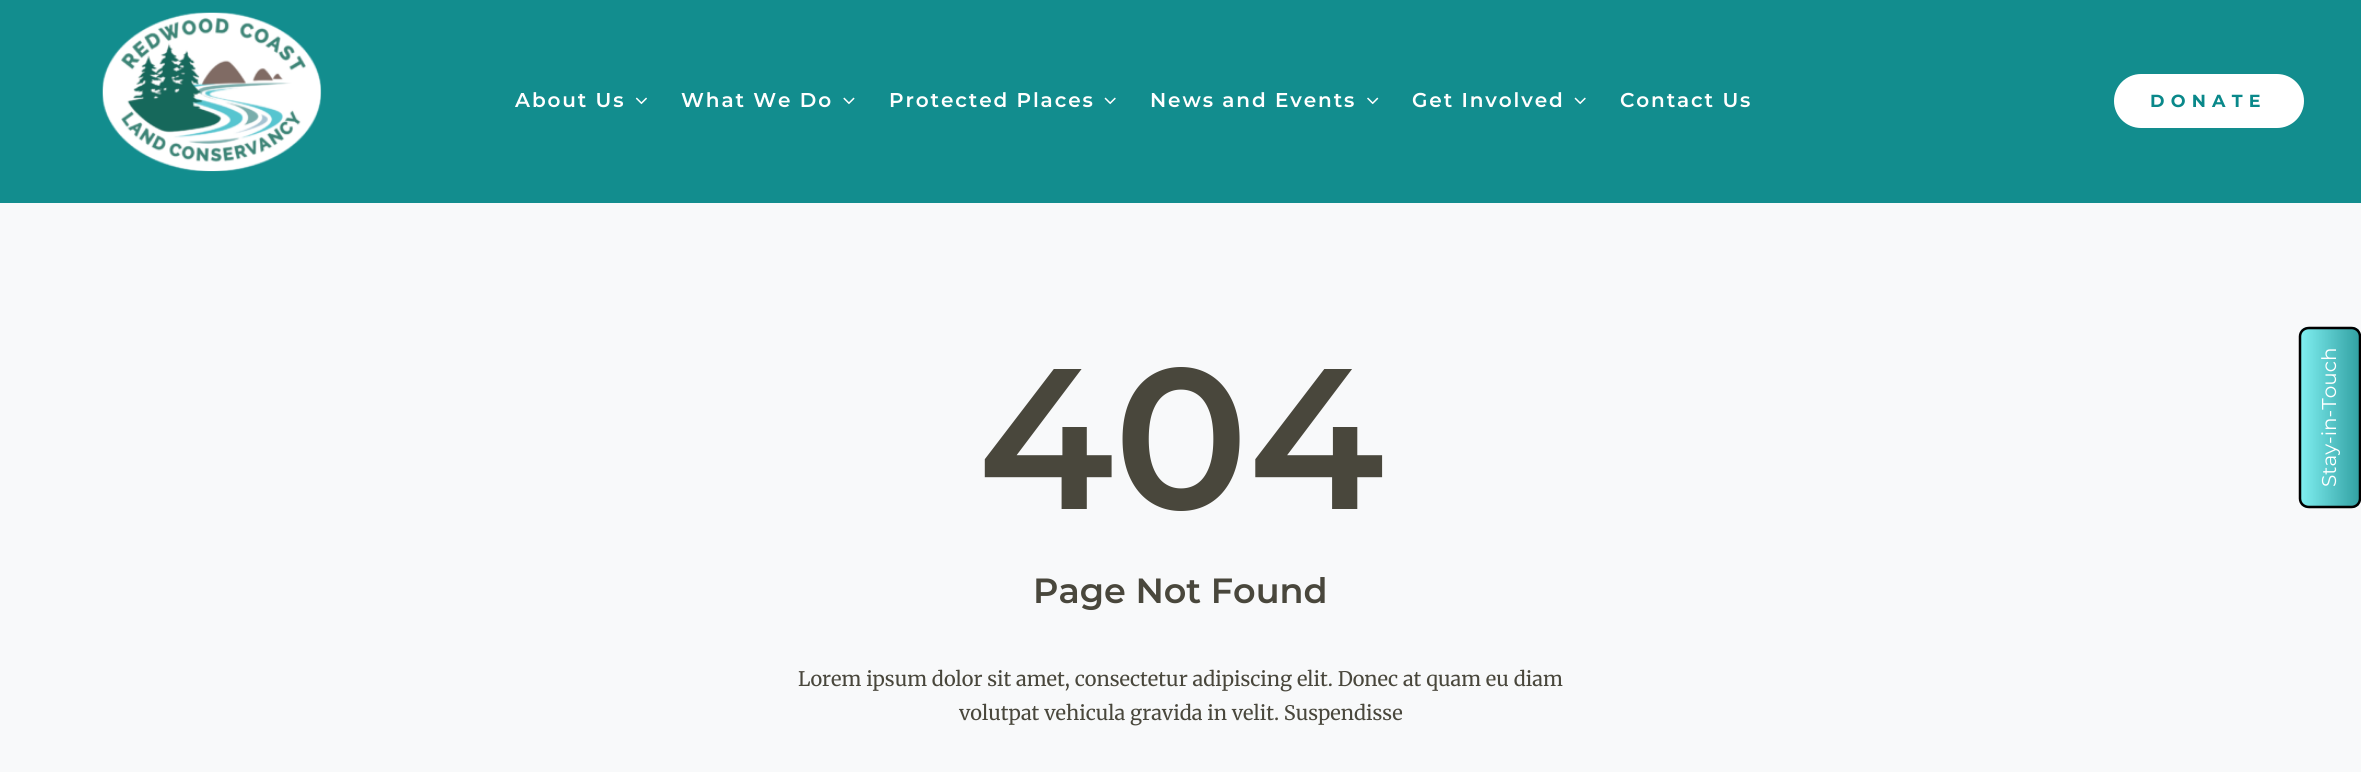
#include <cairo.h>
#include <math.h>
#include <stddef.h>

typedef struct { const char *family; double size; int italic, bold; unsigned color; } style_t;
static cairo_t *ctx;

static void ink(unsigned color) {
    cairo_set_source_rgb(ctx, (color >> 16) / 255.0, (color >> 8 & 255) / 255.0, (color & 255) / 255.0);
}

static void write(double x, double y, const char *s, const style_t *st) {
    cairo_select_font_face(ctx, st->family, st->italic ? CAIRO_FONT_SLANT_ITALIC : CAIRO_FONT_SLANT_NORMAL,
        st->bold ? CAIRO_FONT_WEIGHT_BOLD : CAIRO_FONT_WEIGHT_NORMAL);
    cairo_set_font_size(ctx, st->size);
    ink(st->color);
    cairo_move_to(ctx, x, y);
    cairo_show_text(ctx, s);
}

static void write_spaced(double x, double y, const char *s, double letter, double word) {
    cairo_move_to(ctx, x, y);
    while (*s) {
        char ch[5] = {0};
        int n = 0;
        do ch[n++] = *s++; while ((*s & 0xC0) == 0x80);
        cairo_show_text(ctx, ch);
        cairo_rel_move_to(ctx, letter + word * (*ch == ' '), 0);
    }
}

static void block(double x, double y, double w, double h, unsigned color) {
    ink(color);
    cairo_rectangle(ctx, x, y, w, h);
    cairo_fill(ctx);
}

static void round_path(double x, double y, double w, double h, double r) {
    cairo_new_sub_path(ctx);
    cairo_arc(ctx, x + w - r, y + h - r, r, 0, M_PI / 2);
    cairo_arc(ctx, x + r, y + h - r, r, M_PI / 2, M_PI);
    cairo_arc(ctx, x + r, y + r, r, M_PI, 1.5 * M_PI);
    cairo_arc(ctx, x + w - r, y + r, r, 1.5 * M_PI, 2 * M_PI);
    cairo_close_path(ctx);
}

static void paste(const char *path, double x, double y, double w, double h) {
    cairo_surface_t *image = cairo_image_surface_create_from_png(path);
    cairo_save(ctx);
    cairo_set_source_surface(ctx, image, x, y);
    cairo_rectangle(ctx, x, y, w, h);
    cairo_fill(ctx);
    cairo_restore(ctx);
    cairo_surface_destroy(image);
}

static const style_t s1 = {"Montserrat SemiBold", 200, 0, 0, 0x49473c};
static const style_t s2 = {"Montserrat SemiBold", 35, 0, 0, 0x49473c};
static const style_t s3 = {"Merriweather", 20, 0, 0, 0x49473c};
static const style_t s4 = {"Montserrat Thin", 20, 0, 0, 0xffffff};

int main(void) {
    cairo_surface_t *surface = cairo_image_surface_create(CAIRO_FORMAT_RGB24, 2361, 772);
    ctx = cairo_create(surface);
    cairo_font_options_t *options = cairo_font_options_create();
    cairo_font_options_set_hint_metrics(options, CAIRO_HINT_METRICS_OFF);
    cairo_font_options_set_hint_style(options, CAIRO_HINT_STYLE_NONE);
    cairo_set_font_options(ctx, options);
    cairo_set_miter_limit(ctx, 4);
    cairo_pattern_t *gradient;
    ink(0xf8f9fa);
    cairo_paint(ctx);
    block(0, 0, 2361, 203, 0x128d8e);
    paste("pic1.png", 102, 12, 220, 160);
    cairo_select_font_face(ctx, "Montserrat SemiBold", CAIRO_FONT_SLANT_NORMAL, CAIRO_FONT_WEIGHT_NORMAL);
    cairo_set_font_size(ctx, 20);
    ink(0xffffff);
    write_spaced(515, 107, "About Us", 1.9, 0);
    paste("pic2.png", 635, 97, 12, 8);
    write_spaced(681, 107, "What We Do", 1.9, 0);
    paste("pic3.png", 843, 97, 12, 8);
    write_spaced(889, 107, "Protected Places", 1.9, 0);
    paste("pic4.png", 1104, 97, 12, 8);
    write_spaced(1150, 107, "News and Events", 1.9, 0);
    paste("pic5.png", 1367, 97, 12, 8);
    write_spaced(1412, 107, "Get Involved", 1.9, 0);
    paste("pic4.png", 1574, 97, 12, 8);
    write_spaced(1620, 107, "Contact Us", 1.9, 0);
    round_path(2114, 74, 190, 54, 27);
    cairo_fill(ctx);
    cairo_select_font_face(ctx, "Montserrat", CAIRO_FONT_SLANT_NORMAL, CAIRO_FONT_WEIGHT_BOLD);
    cairo_set_font_size(ctx, 17.5);
    ink(0x09888a);
    write_spaced(2150, 107, "DONATE", 6.25, 0);
    write(978, 509, "404", &s1);
    write(1033, 603, "Page Not Found", &s2);
    write(798, 686, "Lorem ipsum dolor sit amet, consectetur adipiscing elit. Donec at quam eu diam", &s3);
    write(959, 720, "volutpat vehicula gravida in velit. Suspendisse", &s3);
    gradient = cairo_pattern_create_linear(2301, 418, 2359, 418);
    cairo_pattern_add_color_stop_rgba(gradient, 0, 0.498, 0.933, 0.941, 1);
    cairo_pattern_add_color_stop_rgba(gradient, 1, 0.196, 0.631, 0.639, 1);
    cairo_set_source(ctx, gradient);
    cairo_pattern_destroy(gradient);
    cairo_new_path(ctx);
    cairo_move_to(ctx, 2306, 508);
    cairo_curve_to(ctx, 2304, 507, 2302, 506, 2301, 505);
    cairo_line_to(ctx, 2301, 330);
    cairo_curve_to(ctx, 2302, 329, 2304, 328, 2306, 327);
    cairo_line_to(ctx, 2354, 327);
    cairo_curve_to(ctx, 2356, 328, 2358, 329, 2359, 330);
    cairo_line_to(ctx, 2359, 505);
    cairo_curve_to(ctx, 2358, 506, 2356, 507, 2354, 508);
    cairo_close_path(ctx);
    cairo_fill(ctx);
    cairo_new_path(ctx);
    cairo_move_to(ctx, 2300, 498.5);
    cairo_line_to(ctx, 2300, 336.5);
    cairo_curve_to(ctx, 2300, 331.5, 2304, 328, 2309, 328);
    cairo_line_to(ctx, 2351.5, 328);
    cairo_curve_to(ctx, 2356, 328, 2360, 331.5, 2360, 336.5);
    cairo_line_to(ctx, 2360, 498.5);
    cairo_curve_to(ctx, 2360, 503.5, 2356, 507, 2351.5, 507);
    cairo_line_to(ctx, 2309, 507);
    cairo_curve_to(ctx, 2304, 507, 2300, 503.5, 2300, 498.5);
    cairo_close_path(ctx);
    ink(0x000000);
    cairo_set_line_width(ctx, 2.5);
    cairo_stroke(ctx);
    cairo_save(ctx);
    cairo_translate(ctx, 2336, 487);
    cairo_rotate(ctx, -90 * M_PI / 180);
    write(0, 0, "Stay-in-Touch", &s4);
    cairo_restore(ctx);
    cairo_surface_write_to_png(surface, "screenshot.png");
    cairo_font_options_destroy(options);
    cairo_destroy(ctx);
    cairo_surface_destroy(surface);
    return 0;
}
